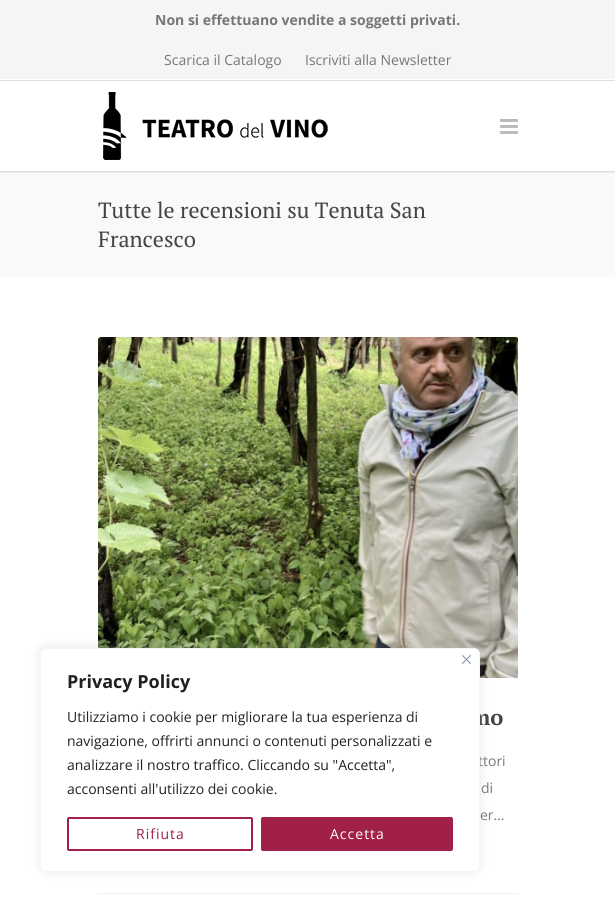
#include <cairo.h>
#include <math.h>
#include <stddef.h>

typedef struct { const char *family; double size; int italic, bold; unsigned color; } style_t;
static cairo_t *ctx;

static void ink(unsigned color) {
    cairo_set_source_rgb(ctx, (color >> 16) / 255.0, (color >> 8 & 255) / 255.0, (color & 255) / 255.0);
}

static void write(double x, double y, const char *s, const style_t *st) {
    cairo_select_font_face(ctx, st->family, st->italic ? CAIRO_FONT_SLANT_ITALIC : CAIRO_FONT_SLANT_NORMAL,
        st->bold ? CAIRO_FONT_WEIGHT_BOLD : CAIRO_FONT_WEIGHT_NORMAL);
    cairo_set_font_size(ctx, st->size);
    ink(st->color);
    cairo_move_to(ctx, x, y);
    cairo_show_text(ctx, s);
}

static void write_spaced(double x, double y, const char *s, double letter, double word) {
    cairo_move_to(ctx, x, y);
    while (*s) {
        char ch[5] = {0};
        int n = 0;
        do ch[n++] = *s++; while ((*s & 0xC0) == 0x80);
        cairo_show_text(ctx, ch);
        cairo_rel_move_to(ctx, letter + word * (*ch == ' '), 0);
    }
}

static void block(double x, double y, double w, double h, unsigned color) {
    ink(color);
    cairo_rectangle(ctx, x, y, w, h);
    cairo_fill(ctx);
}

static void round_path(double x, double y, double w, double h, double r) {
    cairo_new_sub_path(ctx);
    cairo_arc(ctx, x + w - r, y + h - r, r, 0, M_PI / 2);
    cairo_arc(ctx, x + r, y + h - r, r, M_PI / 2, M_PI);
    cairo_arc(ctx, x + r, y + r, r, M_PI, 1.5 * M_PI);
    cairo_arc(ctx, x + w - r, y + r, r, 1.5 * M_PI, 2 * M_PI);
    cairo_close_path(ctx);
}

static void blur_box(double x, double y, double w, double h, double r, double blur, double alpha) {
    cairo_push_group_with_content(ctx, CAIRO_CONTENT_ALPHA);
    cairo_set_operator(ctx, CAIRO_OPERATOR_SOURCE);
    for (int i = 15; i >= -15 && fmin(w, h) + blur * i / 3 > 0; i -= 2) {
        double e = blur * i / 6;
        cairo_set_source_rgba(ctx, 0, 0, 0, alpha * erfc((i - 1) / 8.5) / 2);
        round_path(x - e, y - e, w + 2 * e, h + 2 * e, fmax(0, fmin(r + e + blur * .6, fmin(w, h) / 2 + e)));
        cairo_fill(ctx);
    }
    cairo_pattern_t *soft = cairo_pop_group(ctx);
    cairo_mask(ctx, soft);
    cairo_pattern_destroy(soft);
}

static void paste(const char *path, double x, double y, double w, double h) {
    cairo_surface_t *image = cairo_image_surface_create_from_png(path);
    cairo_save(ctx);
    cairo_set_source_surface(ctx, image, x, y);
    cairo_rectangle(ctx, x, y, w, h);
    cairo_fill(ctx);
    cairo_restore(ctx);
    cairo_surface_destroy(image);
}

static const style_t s1 = {"Open Sans", 14, 0, 1, 0x777777};
static const style_t s2 = {"Open Sans", 14, 0, 0, 0x777777};
static const style_t s3 = {"PT Serif", 22, 0, 0, 0x444444};
static const style_t s4 = {"PT Serif", 22, 0, 1, 0x444444};
static const style_t s5 = {"Open Sans", 18, 0, 1, 0x212121};
static const style_t s6 = {"Open Sans", 14, 0, 0, 0x212121};

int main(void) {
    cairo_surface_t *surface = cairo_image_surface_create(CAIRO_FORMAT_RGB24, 615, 912);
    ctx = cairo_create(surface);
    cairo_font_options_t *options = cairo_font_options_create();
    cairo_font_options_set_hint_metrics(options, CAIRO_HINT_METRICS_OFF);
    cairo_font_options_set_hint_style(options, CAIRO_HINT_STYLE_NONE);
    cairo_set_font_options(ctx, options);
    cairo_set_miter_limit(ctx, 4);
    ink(0xffffff);
    cairo_paint(ctx);
    block(0, 171, 615, 106, 0xf9f9f9);
    cairo_save(ctx);
    cairo_rectangle(ctx, 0, 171, 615, 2);
    cairo_clip(ctx);
    ink(0x000000);
    blur_box(-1, 80, 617, 92, 0, 1, 0.16);
    cairo_restore(ctx);
    block(0, 0, 615, 79, 0xf5f5f5);
    block(0, 80, 615, 1, 0xdfdfdf);
    write(155, 25, "Non si effettuano vendite a soggetti privati.", &s1);
    write(164, 65, "Scarica il Catalogo", &s2);
    write(305, 65, "Iscriviti alla Newsletter", &s2);
    paste("pic1.png", 103, 92, 225, 68);
    paste("pic2.png", 500, 119, 18, 15);
    write(98, 218, "Tutte le recensioni su Tenuta San", &s3);
    write(98, 247, "Francesco", &s3);
    paste("pic3.png", 98, 337, 420, 341);
    write(470, 725, "mo", &s4);
    write(478, 766, "ttori", &s2);
    write(481, 793, "di", &s2);
    write(480, 820, "er…", &s2);
    block(98, 893, 420, 1, 0xefefef);
    ink(0xacabab);
    blur_box(40, 647, 440, 224, 6, 5, 0.3);
    ink(0xffffff);
    round_path(40.5, 648.5, 439, 223, 5.5);
    cairo_fill_preserve(ctx);
    ink(0xf4f4f4);
    cairo_set_line_width(ctx, 1);
    cairo_stroke(ctx);
    paste("pic4.png", 462, 655, 9, 9);
    write(67, 688, "Privacy Policy", &s5);
    write(67, 722, "Utilizziamo i cookie per migliorare la tua esperienza di", &s6);
    write(67, 746, "navigazione, offrirti annunci o contenuti personalizzati e", &s6);
    write(67, 770, "analizzare il nostro traffico. Cliccando su \"Accetta\",", &s6);
    write(67, 794, "acconsenti all'utilizzo dei cookie.", &s6);
    round_path(68, 818, 184, 32, 1);
    ink(0xa12047);
    cairo_set_line_width(ctx, 2);
    cairo_stroke(ctx);
    write_spaced(136, 839, "Rifiuta", 1, 0);
    round_path(262, 818, 190, 32, 1);
    cairo_fill_preserve(ctx);
    cairo_stroke(ctx);
    ink(0xffffff);
    write_spaced(330, 839, "Accetta", 1, 0);
    cairo_surface_write_to_png(surface, "screenshot.png");
    cairo_font_options_destroy(options);
    cairo_destroy(ctx);
    cairo_surface_destroy(surface);
    return 0;
}
